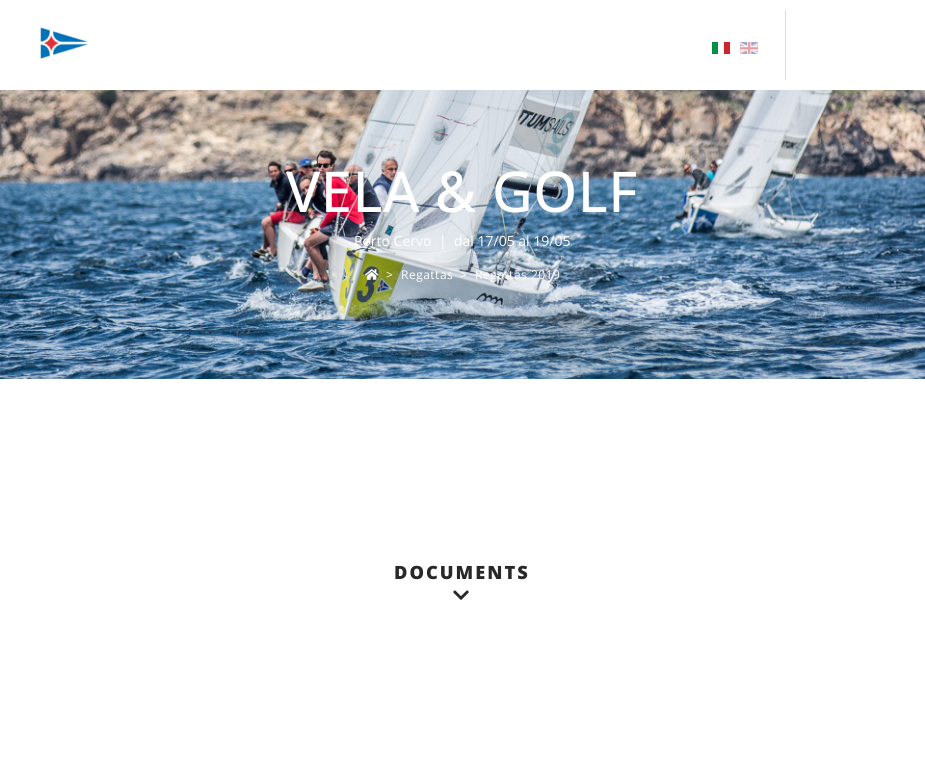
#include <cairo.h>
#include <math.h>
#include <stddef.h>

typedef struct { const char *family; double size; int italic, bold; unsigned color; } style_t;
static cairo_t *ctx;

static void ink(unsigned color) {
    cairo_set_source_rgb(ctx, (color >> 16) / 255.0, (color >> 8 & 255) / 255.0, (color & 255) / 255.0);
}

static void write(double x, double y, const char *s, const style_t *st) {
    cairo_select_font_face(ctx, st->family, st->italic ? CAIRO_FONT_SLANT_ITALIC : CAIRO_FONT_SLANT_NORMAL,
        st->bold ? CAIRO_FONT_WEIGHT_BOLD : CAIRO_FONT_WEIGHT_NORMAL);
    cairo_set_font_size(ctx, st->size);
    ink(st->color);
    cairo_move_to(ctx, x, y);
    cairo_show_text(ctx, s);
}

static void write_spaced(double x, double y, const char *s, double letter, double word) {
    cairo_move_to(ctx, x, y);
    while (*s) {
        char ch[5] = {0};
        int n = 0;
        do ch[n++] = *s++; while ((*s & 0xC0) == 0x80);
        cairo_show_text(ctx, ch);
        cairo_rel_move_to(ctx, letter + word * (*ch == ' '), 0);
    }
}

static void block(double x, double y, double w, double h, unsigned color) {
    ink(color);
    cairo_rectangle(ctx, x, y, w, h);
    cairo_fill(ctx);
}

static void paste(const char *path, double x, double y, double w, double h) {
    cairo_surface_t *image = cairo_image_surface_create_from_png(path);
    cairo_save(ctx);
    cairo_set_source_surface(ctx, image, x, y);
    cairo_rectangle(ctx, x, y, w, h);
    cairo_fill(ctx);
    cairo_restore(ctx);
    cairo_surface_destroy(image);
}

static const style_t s1 = {"Open Sans", 14, 0, 0, 0xffffff};

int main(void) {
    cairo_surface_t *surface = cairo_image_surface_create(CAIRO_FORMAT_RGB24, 925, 763);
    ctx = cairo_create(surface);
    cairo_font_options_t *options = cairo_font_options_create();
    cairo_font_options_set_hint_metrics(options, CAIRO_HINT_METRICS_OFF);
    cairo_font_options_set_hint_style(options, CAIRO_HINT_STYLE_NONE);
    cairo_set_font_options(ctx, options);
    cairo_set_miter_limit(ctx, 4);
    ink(0xffffff);
    cairo_paint(ctx);
    paste("pic1.png", 40, 27, 48, 32);
    paste("pic2.png", 712, 42, 18, 12);
    paste("pic3.png", 740, 42, 18, 12);
    block(785, 10, 1, 70, 0xdddddd);
    paste("pic4.png", 0, 90, 925, 289);
    cairo_select_font_face(ctx, "Open Sans Medium", CAIRO_FONT_SLANT_NORMAL, CAIRO_FONT_WEIGHT_NORMAL);
    cairo_set_font_size(ctx, 56.25);
    ink(0xffffff);
    write_spaced(286, 212, "VELA & GOLF", 0.5, 0);
    write(354, 246, "Porto Cervo", &s1);
    write(439, 246, "|", &s1);
    write(454, 246, "dal 17/05 al 19/05", &s1);
    paste("pic5.png", 365, 269, 14, 11);
    cairo_set_font_size(ctx, 12);
    write_spaced(386, 279, ">", 0.5, 0);
    write_spaced(401, 279, "Regattas", 0.5, 0);
    write_spaced(460, 279, ">", 0.5, 0);
    write_spaced(475, 279, "Regattas 2019", 0.5, 0);
    cairo_select_font_face(ctx, "Open Sans ExtraBold", CAIRO_FONT_SLANT_NORMAL, CAIRO_FONT_WEIGHT_NORMAL);
    cairo_set_font_size(ctx, 18.25);
    ink(0x282828);
    write_spaced(394, 579, "DOCUMENTS", 2, 0);
    paste("pic6.png", 453, 590, 16, 10);
    cairo_surface_write_to_png(surface, "screenshot.png");
    cairo_font_options_destroy(options);
    cairo_destroy(ctx);
    cairo_surface_destroy(surface);
    return 0;
}
